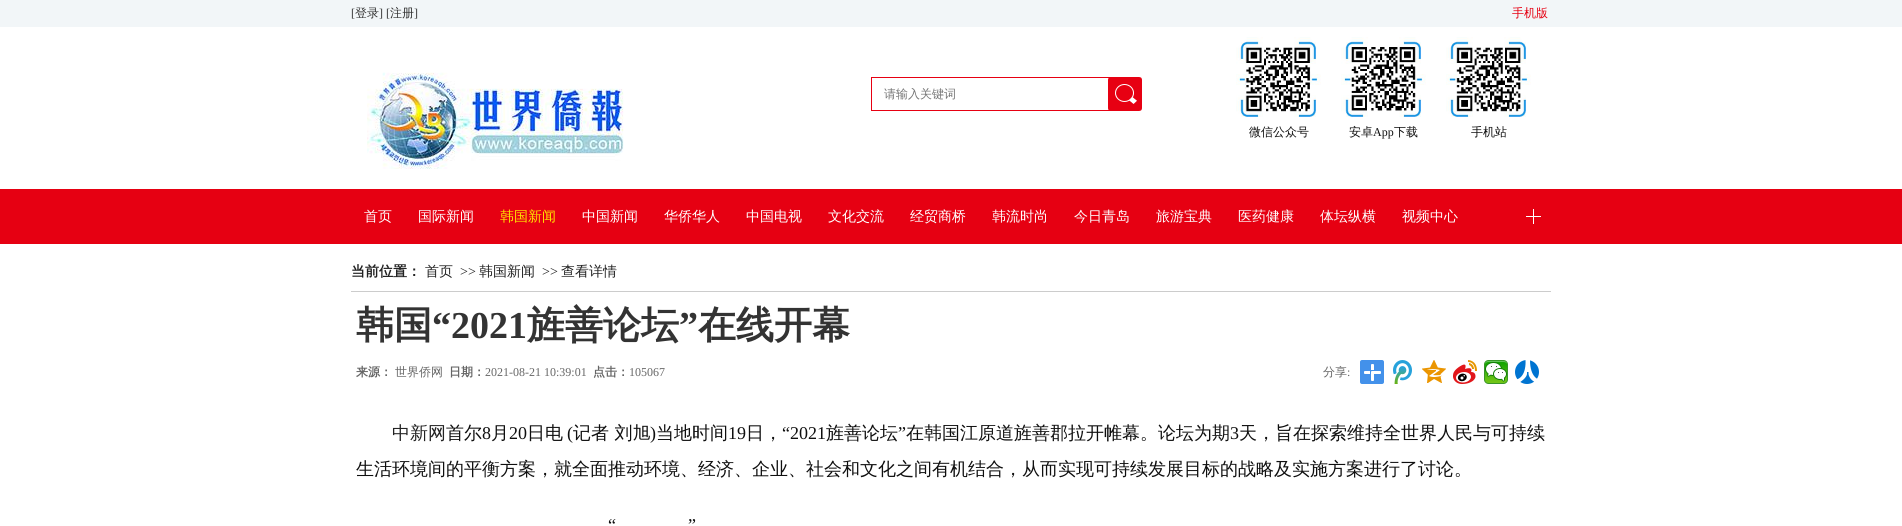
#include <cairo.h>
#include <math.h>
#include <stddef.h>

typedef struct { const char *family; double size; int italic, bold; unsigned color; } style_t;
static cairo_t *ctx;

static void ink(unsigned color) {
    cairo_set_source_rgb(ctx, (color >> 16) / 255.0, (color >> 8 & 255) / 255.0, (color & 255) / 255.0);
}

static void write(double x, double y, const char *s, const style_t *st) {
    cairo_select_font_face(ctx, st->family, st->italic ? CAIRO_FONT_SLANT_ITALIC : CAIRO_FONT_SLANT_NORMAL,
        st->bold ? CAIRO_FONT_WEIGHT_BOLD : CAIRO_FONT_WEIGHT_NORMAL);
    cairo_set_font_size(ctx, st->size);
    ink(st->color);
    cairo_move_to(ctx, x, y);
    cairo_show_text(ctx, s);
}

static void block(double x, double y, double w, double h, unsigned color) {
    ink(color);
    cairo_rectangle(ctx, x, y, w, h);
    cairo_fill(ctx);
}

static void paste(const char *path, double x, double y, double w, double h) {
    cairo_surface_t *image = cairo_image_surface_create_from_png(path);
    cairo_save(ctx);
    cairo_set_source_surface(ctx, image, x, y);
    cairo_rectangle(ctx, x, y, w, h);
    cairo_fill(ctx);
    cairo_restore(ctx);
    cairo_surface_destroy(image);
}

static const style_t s1 = {"Liberation Serif", 12, 0, 0, 0x333333};
static const style_t s2 = {"WenQuanYi Zen Hei Medium", 12, 0, 0, 0x333333};
static const style_t s3 = {"WenQuanYi Zen Hei Medium", 12, 0, 0, 0xe60012};
static const style_t s4 = {"WenQuanYi Zen Hei Medium", 12, 0, 0, 0x757575};
static const style_t s5 = {"WenQuanYi Zen Hei Medium", 12, 0, 0, 0x0f0f0f};
static const style_t s6 = {"Liberation Serif", 12, 0, 0, 0x0f0f0f};
static const style_t s7 = {"WenQuanYi Zen Hei Medium", 14, 0, 0, 0xffffff};
static const style_t s8 = {"WenQuanYi Zen Hei Medium", 14, 0, 0, 0xffe400};
static const style_t s9 = {"WenQuanYi Zen Hei", 14, 0, 1, 0x222222};
static const style_t s10 = {"WenQuanYi Zen Hei Medium", 14, 0, 0, 0x222222};
static const style_t s11 = {"Liberation Serif", 14, 0, 0, 0x222222};
static const style_t s12 = {"WenQuanYi Zen Hei", 38, 0, 1, 0x333333};
static const style_t s13 = {"Liberation Serif", 38, 0, 1, 0x333333};
static const style_t s14 = {"WenQuanYi Zen Hei", 12, 0, 1, 0x666666};
static const style_t s15 = {"WenQuanYi Zen Hei Medium", 12, 0, 0, 0x666666};
static const style_t s16 = {"Liberation Serif", 12, 0, 0, 0x666666};
static const style_t s17 = {"WenQuanYi Zen Hei Medium", 18, 0, 0, 0x222222};
static const style_t s18 = {"WenQuanYi Zen Hei Medium", 18, 0, 0, 0x0f0f0f};
static const style_t s19 = {"Liberation Serif", 18, 0, 0, 0x0f0f0f};

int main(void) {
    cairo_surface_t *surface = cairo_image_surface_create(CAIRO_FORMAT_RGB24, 1902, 526);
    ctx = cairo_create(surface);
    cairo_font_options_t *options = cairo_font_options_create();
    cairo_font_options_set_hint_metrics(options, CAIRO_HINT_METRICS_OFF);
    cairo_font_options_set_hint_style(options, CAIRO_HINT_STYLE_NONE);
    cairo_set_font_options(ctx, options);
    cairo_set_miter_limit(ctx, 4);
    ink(0xffffff);
    cairo_paint(ctx);
    block(0, 0, 1902, 27, 0xf2f6f8);
    write(351, 17, "[", &s1);
    write(355, 17, "登录", &s2);
    write(379, 17, "] [", &s1);
    write(390, 17, "注册", &s2);
    write(414, 17, "]", &s1);
    write(1512, 17, "手机版", &s3);
    paste("pic1.png", 367, 72, 257, 97);
    cairo_rectangle(ctx, 871.5, 77.5, 239, 33);
    ink(0xe70012);
    cairo_set_line_width(ctx, 1);
    cairo_stroke(ctx);
    write(884, 98, "请输入关键词", &s4);
    paste("pic2.png", 1108, 77, 34, 34);
    paste("pic3.png", 1236, 37, 85, 80);
    write(1249, 136, "微信公众号", &s5);
    paste("pic4.png", 1341, 37, 85, 80);
    write(1349, 136, "安卓", &s5);
    write(1373, 136, "App", &s6);
    write(1394, 136, "下载", &s5);
    paste("pic5.png", 1446, 37, 85, 80);
    write(1471, 136, "手机站", &s5);
    block(0, 189, 1902, 55, 0xe60012);
    write(364, 221, "首页", &s7);
    write(418, 221, "国际新闻", &s7);
    write(500, 221, "韩国新闻", &s8);
    write(582, 221, "中国新闻", &s7);
    write(664, 221, "华侨华人", &s7);
    write(746, 221, "中国电视", &s7);
    write(828, 221, "文化交流", &s7);
    write(910, 221, "经贸商桥", &s7);
    write(992, 221, "韩流时尚", &s7);
    write(1074, 221, "今日青岛", &s7);
    write(1156, 221, "旅游宝典", &s7);
    write(1238, 221, "医药健康", &s7);
    write(1320, 221, "体坛纵横", &s7);
    write(1402, 221, "视频中心", &s7);
    paste("pic6.png", 1526, 209, 15, 15);
    block(351, 291, 1200, 1, 0xcccccc);
    write(351, 276, "当前位置：", &s9);
    write(425, 276, "首页", &s10);
    write(460, 276, ">>", &s11);
    write(479, 276, "韩国新闻", &s10);
    write(542, 276, ">>", &s11);
    write(561, 276, "查看详情", &s10);
    write(356, 338, "韩国", &s12);
    write(432, 338, "“2021", &s13);
    write(527, 338, "旌善论坛", &s12);
    write(679, 338, "”", &s13);
    write(698, 338, "在线开幕", &s12);
    write(356, 376, "来源：", &s14);
    write(395, 376, "世界侨网", &s15);
    write(449, 376, "日期：", &s14);
    write(485, 376, "2021-08-21 10:39:01", &s16);
    write(593, 376, "点击：", &s14);
    write(629, 376, "105067", &s16);
    write(1323, 376, "分享", &s15);
    write(1347, 376, ":", &s16);
    paste("pic7.png", 1360, 360, 24, 24);
    paste("pic8.png", 1393, 360, 19, 24);
    paste("pic9.png", 1422, 360, 24, 23);
    paste("pic10.png", 1453, 360, 24, 24);
    paste("pic11.png", 1484, 360, 24, 24);
    paste("pic12.png", 1515, 360, 24, 24);
    write(392, 439, "中新网", &s17);
    write(446, 439, "首尔", &s18);
    write(482, 439, "8", &s19);
    write(491, 439, "月", &s18);
    write(509, 439, "20", &s19);
    write(527, 439, "日电", &s18);
    write(567, 439, "(", &s19);
    write(573, 439, "记者 刘旭", &s18);
    write(650, 439, ")", &s19);
    write(656, 439, "当地时间", &s18);
    write(728, 439, "19", &s19);
    write(746, 439, "日，", &s18);
    write(782, 439, "“2021", &s19);
    write(826, 439, "旌善论坛", &s18);
    write(898, 439, "”", &s19);
    write(906, 439, "在韩国江原道旌善郡拉开帷幕。论坛为期", &s18);
    write(1230, 439, "3", &s19);
    write(1239, 439, "天，旨在探索维持全世界人民与可持续", &s18);
    write(356, 475, "生活环境间的平衡方案，就全面推动环境、经济、企业、社会和文化之间有机结合，从而实现可持续发展目标的战略及实施方案进行了讨论。", &s18);
    write(608, 531, "“", &s19);
    write(688, 531, "”", &s19);
    cairo_surface_write_to_png(surface, "screenshot.png");
    cairo_font_options_destroy(options);
    cairo_destroy(ctx);
    cairo_surface_destroy(surface);
    return 0;
}
